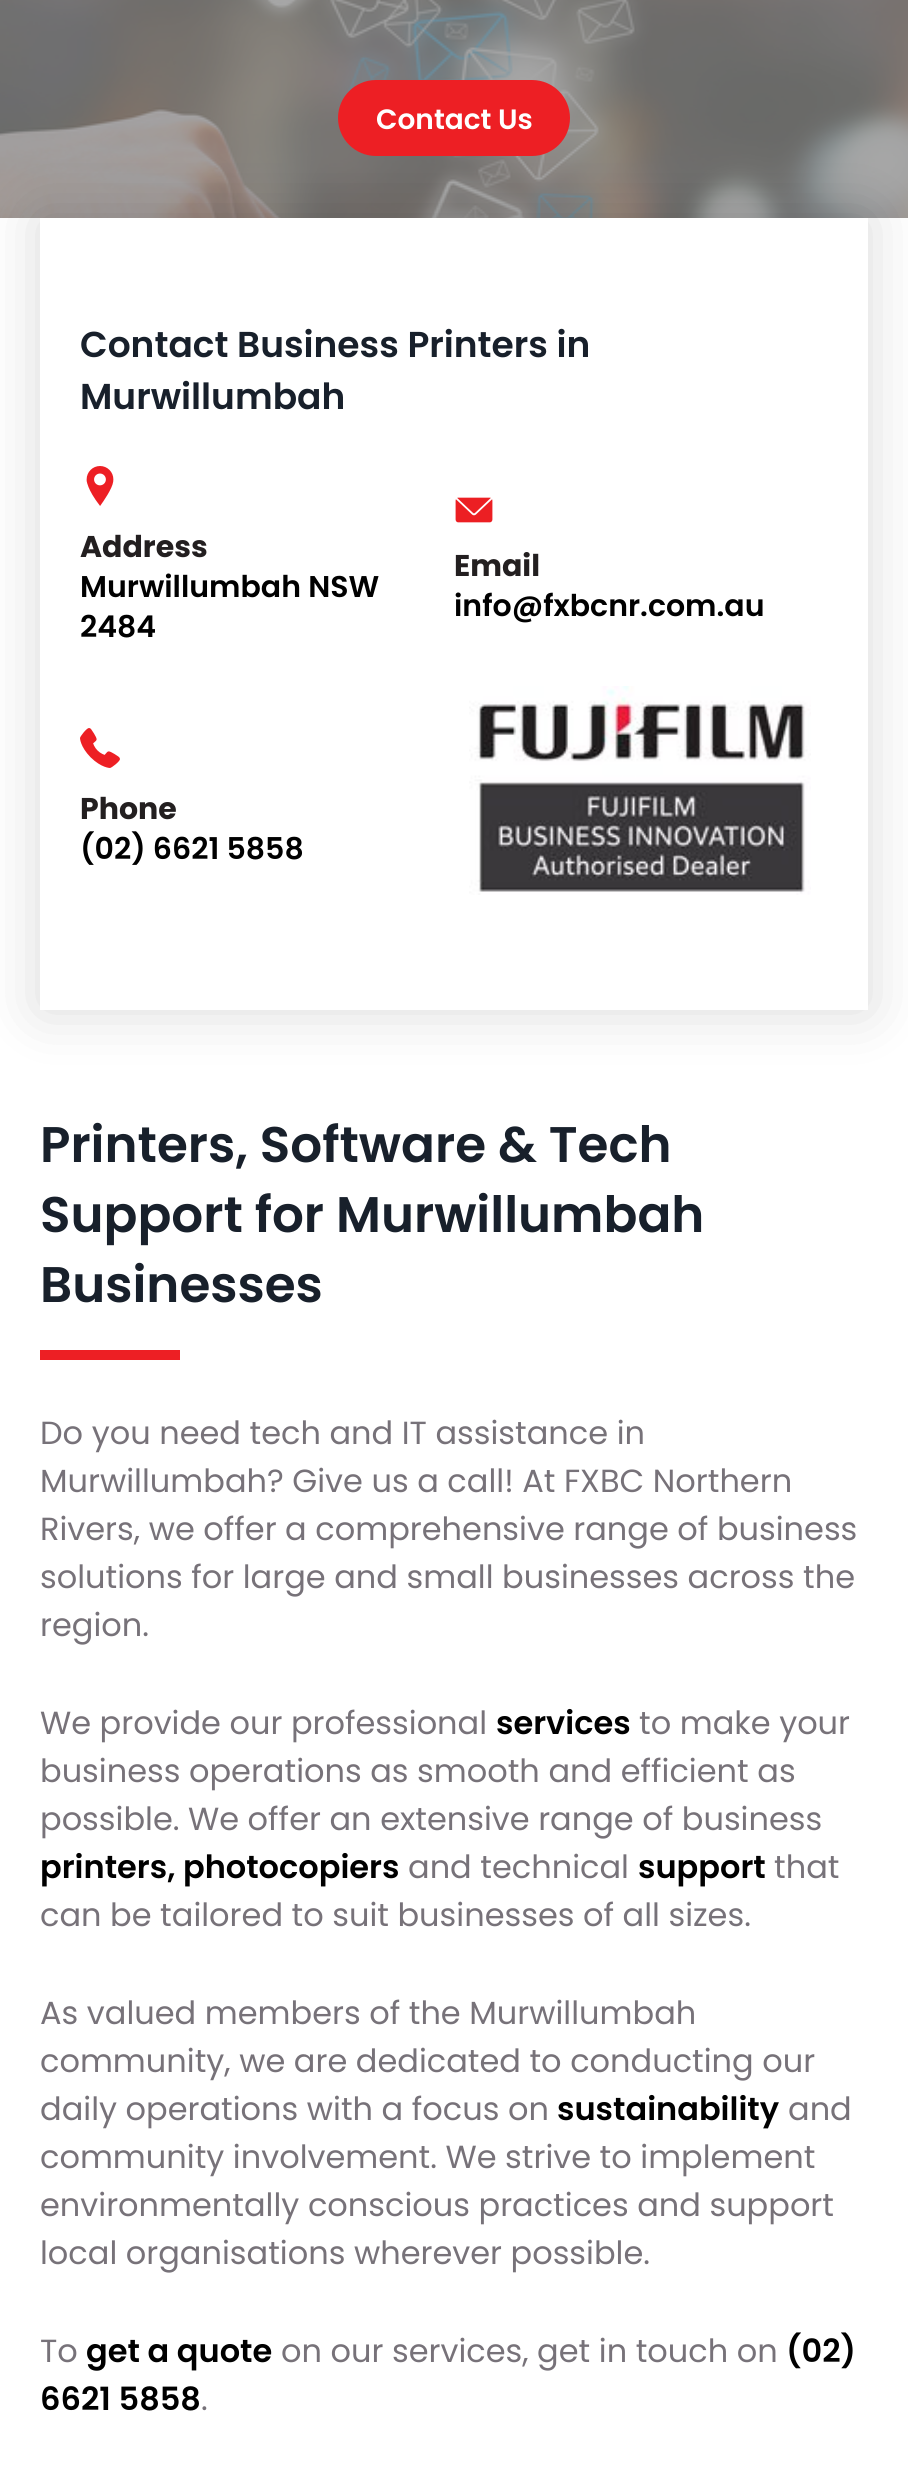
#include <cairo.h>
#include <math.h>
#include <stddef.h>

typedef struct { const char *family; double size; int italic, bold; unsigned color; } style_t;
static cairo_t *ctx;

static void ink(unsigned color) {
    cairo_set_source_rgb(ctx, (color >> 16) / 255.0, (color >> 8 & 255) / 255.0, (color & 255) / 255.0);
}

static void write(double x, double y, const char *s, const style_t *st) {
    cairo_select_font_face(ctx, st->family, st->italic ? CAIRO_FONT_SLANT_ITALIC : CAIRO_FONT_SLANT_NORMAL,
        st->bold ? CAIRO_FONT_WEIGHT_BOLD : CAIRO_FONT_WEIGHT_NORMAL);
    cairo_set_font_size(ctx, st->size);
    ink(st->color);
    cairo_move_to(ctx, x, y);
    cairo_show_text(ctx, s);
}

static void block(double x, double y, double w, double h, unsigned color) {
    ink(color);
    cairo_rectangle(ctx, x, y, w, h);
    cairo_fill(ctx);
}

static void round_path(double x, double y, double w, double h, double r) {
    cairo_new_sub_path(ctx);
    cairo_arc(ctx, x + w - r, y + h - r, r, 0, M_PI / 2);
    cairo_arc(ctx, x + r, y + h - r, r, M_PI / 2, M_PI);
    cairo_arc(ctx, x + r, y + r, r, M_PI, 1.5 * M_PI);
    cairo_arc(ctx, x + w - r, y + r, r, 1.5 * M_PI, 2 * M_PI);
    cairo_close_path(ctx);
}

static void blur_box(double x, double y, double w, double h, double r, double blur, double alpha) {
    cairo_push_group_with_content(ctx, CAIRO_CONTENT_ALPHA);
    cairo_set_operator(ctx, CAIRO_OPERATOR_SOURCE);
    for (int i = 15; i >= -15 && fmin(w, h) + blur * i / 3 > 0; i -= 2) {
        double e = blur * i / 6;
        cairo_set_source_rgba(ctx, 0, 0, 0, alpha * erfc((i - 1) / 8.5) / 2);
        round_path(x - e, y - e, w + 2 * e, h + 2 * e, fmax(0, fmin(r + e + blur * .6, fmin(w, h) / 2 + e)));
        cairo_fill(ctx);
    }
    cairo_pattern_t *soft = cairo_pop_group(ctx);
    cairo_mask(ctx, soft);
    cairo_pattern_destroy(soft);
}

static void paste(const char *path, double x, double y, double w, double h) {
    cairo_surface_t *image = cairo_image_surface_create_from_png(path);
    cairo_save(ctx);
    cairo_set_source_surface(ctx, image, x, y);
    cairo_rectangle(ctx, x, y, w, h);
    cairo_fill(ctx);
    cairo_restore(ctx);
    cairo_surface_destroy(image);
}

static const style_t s1 = {"Poppins SemiBold", 28, 0, 0, 0xffffff};
static const style_t s2 = {"Poppins SemiBold", 36, 0, 0, 0x18202b};
static const style_t s3 = {"Poppins", 30, 0, 1, 0x231f20};
static const style_t s4 = {"Poppins SemiBold", 30, 0, 0, 0x000000};
static const style_t s5 = {"Poppins SemiBold", 50, 0, 0, 0x18202b};
static const style_t s6 = {"Poppins", 32, 0, 0, 0x777279};
static const style_t s7 = {"Poppins SemiBold", 32, 0, 0, 0x000000};

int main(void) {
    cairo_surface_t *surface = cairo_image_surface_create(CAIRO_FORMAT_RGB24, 908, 2470);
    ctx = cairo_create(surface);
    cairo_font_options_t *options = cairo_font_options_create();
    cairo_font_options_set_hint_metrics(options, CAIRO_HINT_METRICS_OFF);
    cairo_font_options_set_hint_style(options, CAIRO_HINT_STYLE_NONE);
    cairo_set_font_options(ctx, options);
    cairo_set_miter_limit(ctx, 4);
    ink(0xffffff);
    cairo_paint(ctx);
    paste("pic1.png", 0, 0, 908, 218);
    ink(0xed1f24);
    round_path(338, 80, 232, 76, 38);
    cairo_fill(ctx);
    write(376, 129, "Contact Us", &s1);
    cairo_save(ctx);
    cairo_set_fill_rule(ctx, CAIRO_FILL_RULE_EVEN_ODD);
    cairo_new_path(ctx);
    cairo_move_to(ctx, 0, 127);
    cairo_line_to(ctx, 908, 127);
    cairo_line_to(ctx, 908, 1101);
    cairo_line_to(ctx, 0, 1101);
    cairo_close_path(ctx);
    cairo_move_to(ctx, 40, 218);
    cairo_line_to(ctx, 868, 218);
    cairo_line_to(ctx, 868, 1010);
    cairo_line_to(ctx, 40, 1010);
    cairo_close_path(ctx);
    cairo_clip(ctx);
    ink(0x000000);
    blur_box(40, 218, 828, 792, 0, 30, 0.15);
    cairo_restore(ctx);
    write(80, 357, "Contact Business Printers in", &s2);
    write(80, 409, "Murwillumbah", &s2);
    paste("pic2.png", 86, 466, 28, 40);
    write(80, 557, "Address", &s3);
    write(80, 597, "Murwillumbah NSW", &s4);
    write(80, 637, "2484", &s4);
    paste("pic3.png", 455, 497, 38, 26);
    write(454, 576, "Email", &s3);
    write(454, 616, "info@fxbcnr.com.au", &s4);
    paste("pic4.png", 80, 728, 40, 40);
    write(80, 819, "Phone", &s3);
    write(80, 859, "(02) 6621 5858", &s4);
    paste("pic5.png", 469, 686, 342, 209);
    write(40, 1162, "Printers, Software & Tech", &s5);
    write(40, 1232, "Support for Murwillumbah", &s5);
    write(40, 1302, "Businesses", &s5);
    block(40, 1350, 140, 10, 0xed1f24);
    write(40, 1444, "Do you need tech and IT assistance in", &s6);
    write(40, 1492, "Murwillumbah? Give us a call! At FXBC Northern", &s6);
    write(40, 1540, "Rivers, we offer a comprehensive range of business", &s6);
    write(40, 1588, "solutions for large and small businesses across the", &s6);
    write(40, 1636, "region.", &s6);
    write(40, 1734, "We provide our professional", &s6);
    write(496, 1734, "services", &s7);
    write(639, 1734, "to make your", &s6);
    write(40, 1782, "business operations as smooth and efficient as", &s6);
    write(40, 1830, "possible. We offer an extensive range of business", &s6);
    write(40, 1878, "printers, photocopiers", &s7);
    write(408, 1878, "and technical", &s6);
    write(638, 1878, "support", &s7);
    write(774, 1878, "that", &s6);
    write(40, 1926, "can be tailored to suit businesses of all sizes.", &s6);
    write(40, 2024, "As valued members of the Murwillumbah", &s6);
    write(40, 2072, "community, we are dedicated to conducting our", &s6);
    write(40, 2120, "daily operations with a focus on", &s6);
    write(557, 2120, "sustainability", &s7);
    write(788, 2120, "and", &s6);
    write(40, 2168, "community involvement. We strive to implement", &s6);
    write(40, 2216, "environmentally conscious practices and support", &s6);
    write(40, 2264, "local organisations wherever possible.", &s6);
    write(40, 2362, "To", &s6);
    write(86, 2362, "get a quote", &s7);
    write(281, 2362, "on our services, get in touch on", &s6);
    write(786, 2362, "(02)", &s7);
    write(40, 2410, "6621 5858", &s7);
    write(201, 2410, ".", &s6);
    cairo_surface_write_to_png(surface, "screenshot.png");
    cairo_font_options_destroy(options);
    cairo_destroy(ctx);
    cairo_surface_destroy(surface);
    return 0;
}
